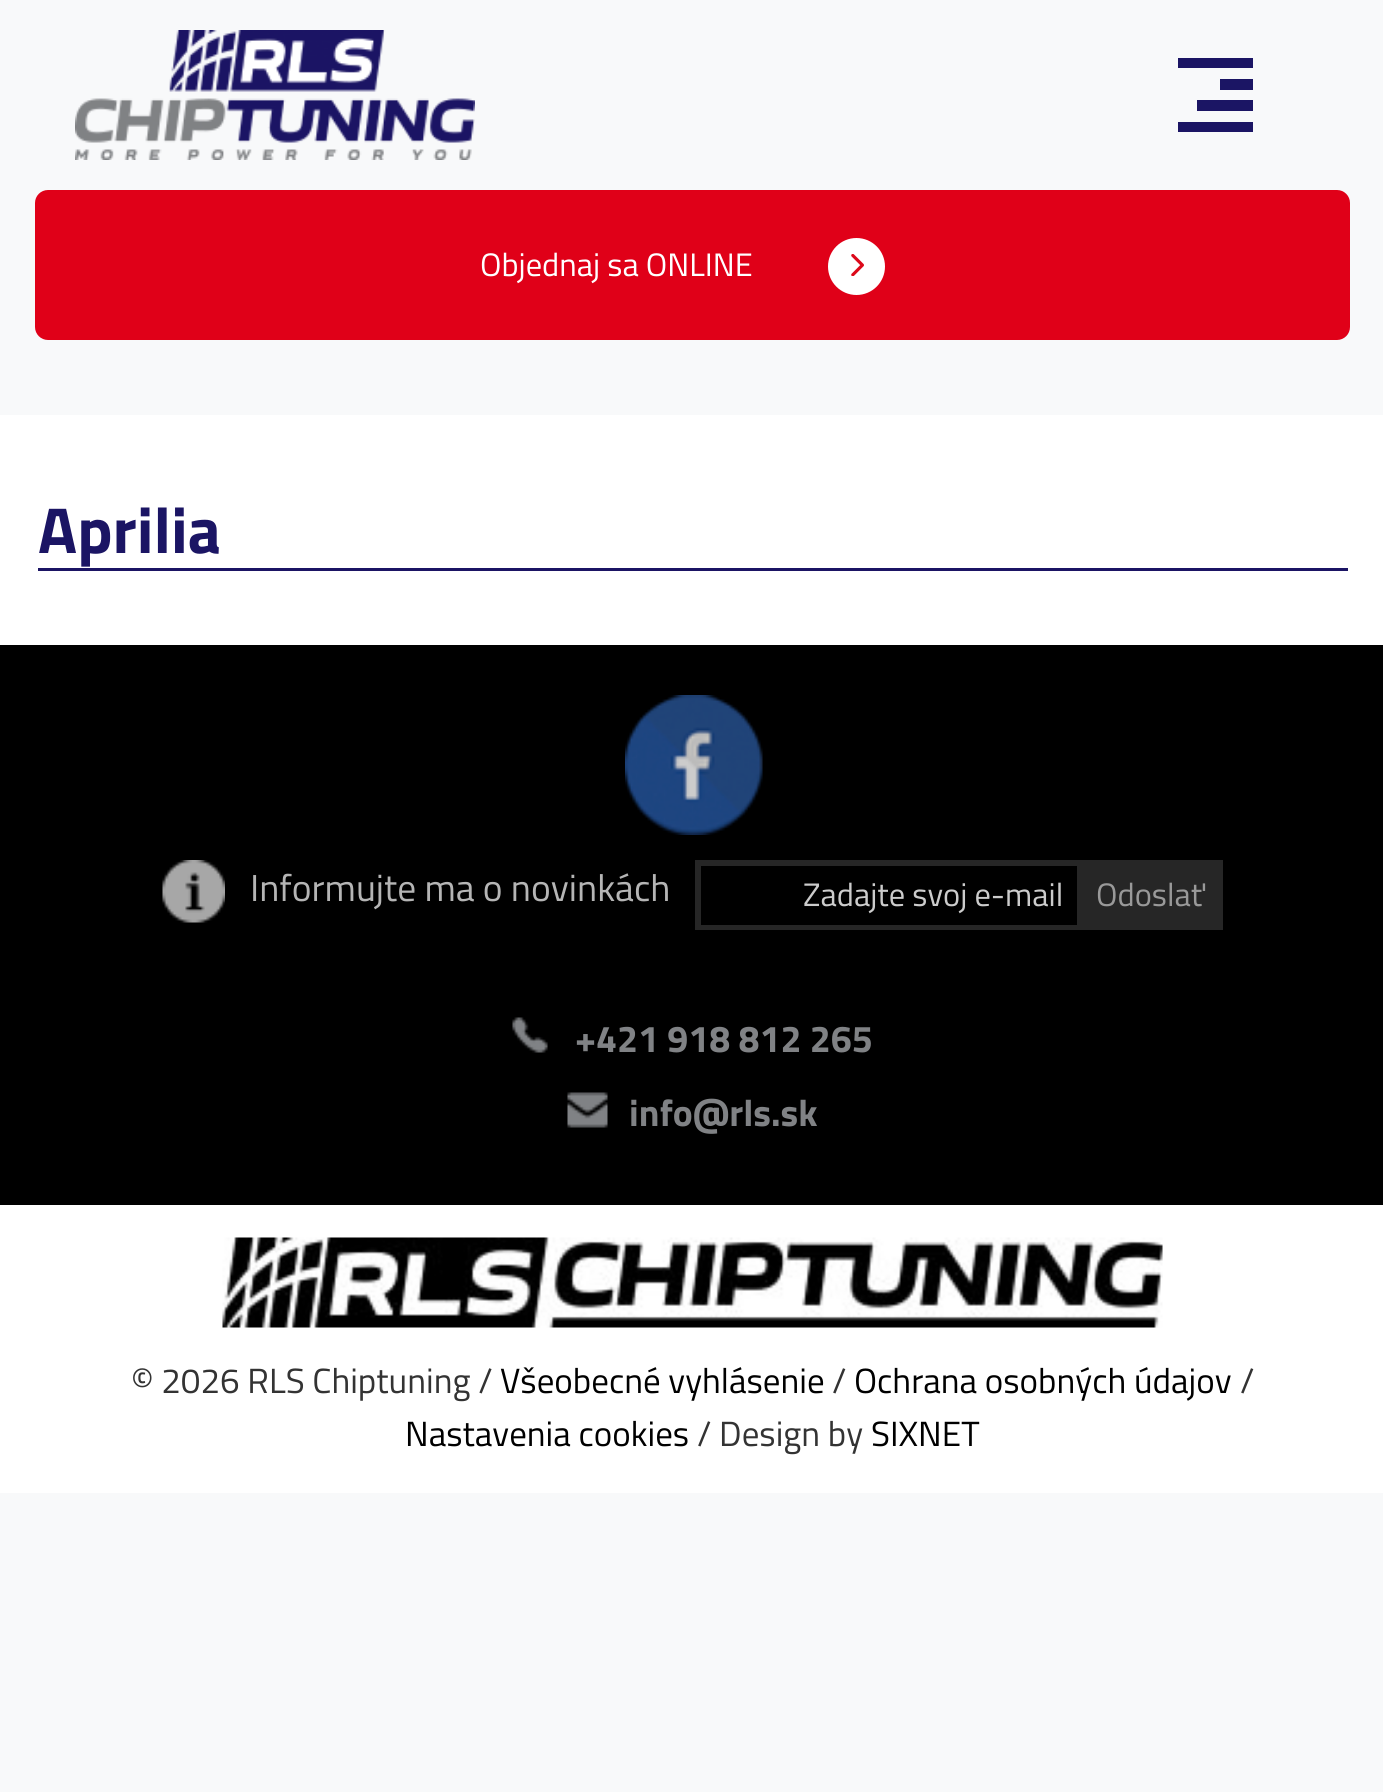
#include <cairo.h>
#include <math.h>
#include <stddef.h>

typedef struct { const char *family; double size; int italic, bold; unsigned color; } style_t;
static cairo_t *ctx;

static void ink(unsigned color) {
    cairo_set_source_rgb(ctx, (color >> 16) / 255.0, (color >> 8 & 255) / 255.0, (color & 255) / 255.0);
}

static void write(double x, double y, const char *s, const style_t *st) {
    cairo_select_font_face(ctx, st->family, st->italic ? CAIRO_FONT_SLANT_ITALIC : CAIRO_FONT_SLANT_NORMAL,
        st->bold ? CAIRO_FONT_WEIGHT_BOLD : CAIRO_FONT_WEIGHT_NORMAL);
    cairo_set_font_size(ctx, st->size);
    ink(st->color);
    cairo_move_to(ctx, x, y);
    cairo_show_text(ctx, s);
}

static void block(double x, double y, double w, double h, unsigned color) {
    ink(color);
    cairo_rectangle(ctx, x, y, w, h);
    cairo_fill(ctx);
}

static void round_path(double x, double y, double w, double h, double r) {
    cairo_new_sub_path(ctx);
    cairo_arc(ctx, x + w - r, y + h - r, r, 0, M_PI / 2);
    cairo_arc(ctx, x + r, y + h - r, r, M_PI / 2, M_PI);
    cairo_arc(ctx, x + r, y + r, r, M_PI, 1.5 * M_PI);
    cairo_arc(ctx, x + w - r, y + r, r, 1.5 * M_PI, 2 * M_PI);
    cairo_close_path(ctx);
}

static void paste(const char *path, double x, double y, double w, double h) {
    cairo_surface_t *image = cairo_image_surface_create_from_png(path);
    cairo_save(ctx);
    cairo_set_source_surface(ctx, image, x, y);
    cairo_rectangle(ctx, x, y, w, h);
    cairo_fill(ctx);
    cairo_restore(ctx);
    cairo_surface_destroy(image);
}

static const style_t s1 = {"Titillium Web", 32.5, 0, 0, 0xffffff};
static const style_t s2 = {"Titillium Web", 65, 0, 1, 0x1b1564};
static const style_t s3 = {"Titillium Web", 37.5, 0, 0, 0xb5b5b5};
static const style_t s4 = {"Titillium Web", 32.5, 0, 0, 0xcccccc};
static const style_t s5 = {"Titillium Web", 32.5, 0, 0, 0x999999};
static const style_t s6 = {"Titillium Web", 37.5, 0, 1, 0x808285};
static const style_t s7 = {"Titillium Web", 35, 0, 0, 0x333333};
static const style_t s8 = {"Titillium Web", 35, 0, 0, 0x000000};

int main(void) {
    cairo_surface_t *surface = cairo_image_surface_create(CAIRO_FORMAT_RGB24, 1383, 1792);
    ctx = cairo_create(surface);
    cairo_font_options_t *options = cairo_font_options_create();
    cairo_font_options_set_hint_metrics(options, CAIRO_HINT_METRICS_OFF);
    cairo_font_options_set_hint_style(options, CAIRO_HINT_STYLE_NONE);
    cairo_set_font_options(ctx, options);
    cairo_set_miter_limit(ctx, 4);
    ink(0xf8f9fa);
    cairo_paint(ctx);
    paste("pic1.png", 75, 30, 400, 130);
    block(1178, 58, 75, 10, 0x1b1564);
    block(1220, 79, 33, 11, 0x1b1564);
    block(1197, 100, 56, 11, 0x1b1564);
    block(1178, 122, 75, 10, 0x1b1564);
    ink(0xe00018);
    round_path(35, 190, 1315, 150, 13);
    cairo_fill(ctx);
    write(480, 276, "Objednaj sa ONLINE", &s1);
    cairo_new_path(ctx);
    cairo_arc(ctx, 856.5, 266.5, 28.5, 0, 2 * M_PI);
    cairo_fill(ctx);
    paste("pic2.png", 851, 254, 13, 22);
    block(0, 415, 1383, 230, 0xffffff);
    block(38, 568, 1310, 3, 0x1b1464);
    write(38, 553, "Aprilia", &s2);
    block(0, 645, 1383, 560, 0x000000);
    paste("pic3.png", 625, 695, 138, 140);
    paste("pic4.png", 162, 860, 63, 63);
    write(250, 901, "Informujte ma o novinkách", &s3);
    cairo_rectangle(ctx, 696.5, 861.5, 525, 67);
    ink(0x262626);
    cairo_set_line_width(ctx, 3);
    cairo_stroke(ctx);
    cairo_rectangle(ctx, 699.5, 864.5, 379, 62);
    cairo_stroke(ctx);
    write(803, 906, "Zadajte svoj e-mail", &s4);
    block(1080, 863, 140, 64, 0x262626);
    write(1096, 906, "Odoslať", &s5);
    paste("pic5.png", 512, 1017, 36, 36);
    write(575, 1052, "+421 918 812 265", &s6);
    paste("pic6.png", 567, 1092, 41, 36);
    write(629, 1126, "info@rls.sk", &s6);
    block(0, 1205, 1383, 288, 0xffffff);
    paste("pic7.png", 222, 1237, 941, 91);
    write(131, 1393, "© 2026 RLS Chiptuning /", &s7);
    write(500, 1393, "Všeobecné vyhlásenie", &s8);
    write(832, 1393, "/", &s7);
    write(854, 1393, "Ochrana osobných údajov", &s8);
    write(1240, 1393, "/", &s7);
    write(405, 1446, "Nastavenia cookies", &s8);
    write(697, 1446, "/ Design by", &s7);
    write(871, 1446, "SIXNET", &s8);
    cairo_surface_write_to_png(surface, "screenshot.png");
    cairo_font_options_destroy(options);
    cairo_destroy(ctx);
    cairo_surface_destroy(surface);
    return 0;
}
